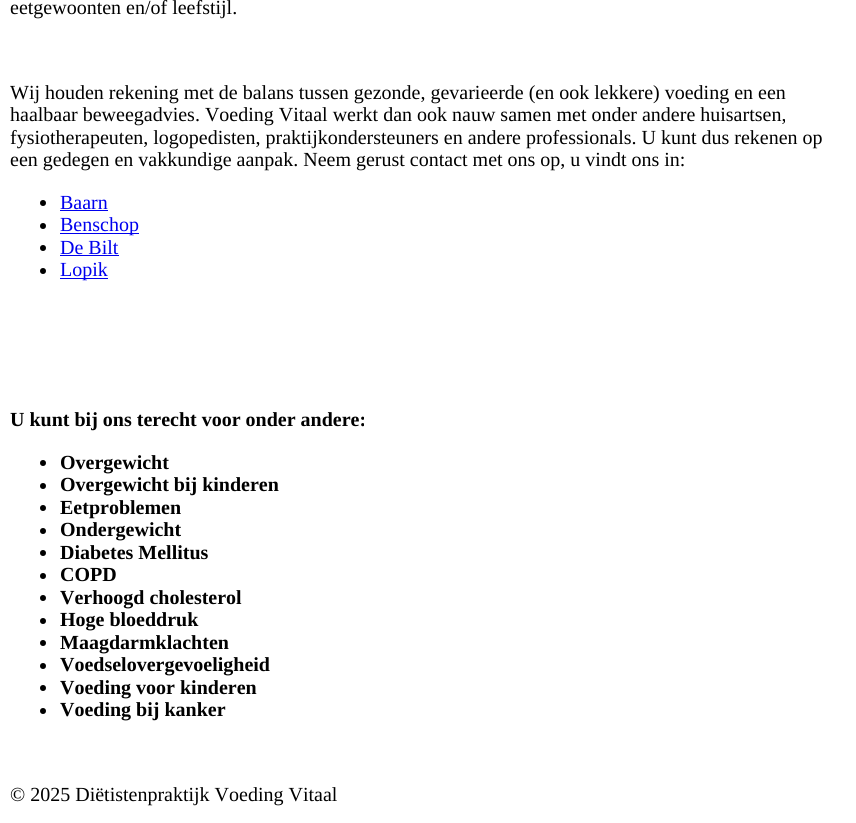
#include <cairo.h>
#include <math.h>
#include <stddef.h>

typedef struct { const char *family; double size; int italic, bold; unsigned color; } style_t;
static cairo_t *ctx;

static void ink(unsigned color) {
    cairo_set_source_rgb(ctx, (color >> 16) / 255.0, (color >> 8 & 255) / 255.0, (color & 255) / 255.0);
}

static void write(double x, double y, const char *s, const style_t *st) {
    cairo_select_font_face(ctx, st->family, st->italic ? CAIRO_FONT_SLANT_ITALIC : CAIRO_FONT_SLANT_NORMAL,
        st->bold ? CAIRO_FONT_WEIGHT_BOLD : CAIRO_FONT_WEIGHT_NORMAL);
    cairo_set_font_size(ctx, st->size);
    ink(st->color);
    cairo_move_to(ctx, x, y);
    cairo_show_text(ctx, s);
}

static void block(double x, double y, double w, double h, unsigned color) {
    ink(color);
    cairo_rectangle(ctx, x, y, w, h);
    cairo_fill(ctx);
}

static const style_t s1 = {"Liberation Serif", 20, 0, 0, 0x000000};
static const style_t s2 = {"Liberation Serif", 20, 0, 0, 0x0000ee};
static const style_t s3 = {"Liberation Serif", 20, 0, 1, 0x000000};

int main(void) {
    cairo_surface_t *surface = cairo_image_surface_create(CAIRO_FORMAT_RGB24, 856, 823);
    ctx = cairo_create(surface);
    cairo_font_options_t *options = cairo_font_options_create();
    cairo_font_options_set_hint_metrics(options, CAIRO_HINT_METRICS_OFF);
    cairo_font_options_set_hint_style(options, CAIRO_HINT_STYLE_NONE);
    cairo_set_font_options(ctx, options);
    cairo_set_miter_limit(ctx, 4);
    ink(0xffffff);
    cairo_paint(ctx);
    write(10, 14, "eetgewoonten en/of leefstijl.", &s1);
    write(10, 99, "Wij houden rekening met de balans tussen gezonde, gevarieerde (en ook lekkere) voeding en een", &s1);
    write(10, 121, "haalbaar beweegadvies. Voeding Vitaal werkt dan ook nauw samen met onder andere huisartsen,", &s1);
    write(10, 144, "fysiotherapeuten, logopedisten, praktijkondersteuners en andere professionals. U kunt dus rekenen op", &s1);
    write(10, 166, "een gedegen en vakkundige aanpak. Neem gerust contact met ons op, u vindt ons in:", &s1);
    cairo_new_path(ctx);
    cairo_arc(ctx, 43, 203, 3, 0, 2 * M_PI);
    cairo_fill(ctx);
    write(60, 209, "Baarn", &s2);
    block(60, 210, 48, 1, 0x0000ee);
    ink(0x000000);
    cairo_new_path(ctx);
    cairo_arc(ctx, 43, 226, 3, 0, 2 * M_PI);
    cairo_fill(ctx);
    block(60, 233, 79, 1, 0x0000ee);
    write(60, 231, "Benschop", &s2);
    ink(0x000000);
    cairo_new_path(ctx);
    cairo_arc(ctx, 43, 248, 3, 0, 2 * M_PI);
    cairo_fill(ctx);
    write(60, 254, "De Bilt", &s2);
    block(60, 255, 59, 1, 0x0000ee);
    ink(0x000000);
    cairo_new_path(ctx);
    cairo_arc(ctx, 43, 271, 3, 0, 2 * M_PI);
    cairo_fill(ctx);
    block(60, 278, 48, 1, 0x0000ee);
    write(60, 276, "Lopik", &s2);
    write(10, 426, "U kunt bij ons terecht voor onder andere:", &s3);
    cairo_new_path(ctx);
    cairo_arc(ctx, 43, 463, 3, 0, 2 * M_PI);
    cairo_fill(ctx);
    write(60, 469, "Overgewicht", &s3);
    cairo_new_path(ctx);
    cairo_arc(ctx, 43, 486, 3, 0, 2 * M_PI);
    cairo_fill(ctx);
    write(60, 491, "Overgewicht bij kinderen", &s3);
    cairo_new_path(ctx);
    cairo_arc(ctx, 43, 508, 3, 0, 2 * M_PI);
    cairo_fill(ctx);
    write(60, 514, "Eetproblemen", &s3);
    cairo_new_path(ctx);
    cairo_arc(ctx, 43, 531, 3, 0, 2 * M_PI);
    cairo_fill(ctx);
    write(60, 536, "Ondergewicht", &s3);
    cairo_new_path(ctx);
    cairo_arc(ctx, 43, 553, 3, 0, 2 * M_PI);
    cairo_fill(ctx);
    write(60, 559, "Diabetes Mellitus", &s3);
    cairo_new_path(ctx);
    cairo_arc(ctx, 43, 576, 3, 0, 2 * M_PI);
    cairo_fill(ctx);
    write(60, 581, "COPD", &s3);
    cairo_new_path(ctx);
    cairo_arc(ctx, 43, 598, 3, 0, 2 * M_PI);
    cairo_fill(ctx);
    write(60, 604, "Verhoogd cholesterol", &s3);
    cairo_new_path(ctx);
    cairo_arc(ctx, 43, 621, 3, 0, 2 * M_PI);
    cairo_fill(ctx);
    write(60, 626, "Hoge bloeddruk", &s3);
    cairo_new_path(ctx);
    cairo_arc(ctx, 43, 643, 3, 0, 2 * M_PI);
    cairo_fill(ctx);
    write(60, 649, "Maagdarmklachten", &s3);
    cairo_new_path(ctx);
    cairo_arc(ctx, 43, 666, 3, 0, 2 * M_PI);
    cairo_fill(ctx);
    write(60, 671, "Voedselovergevoeligheid", &s3);
    cairo_new_path(ctx);
    cairo_arc(ctx, 43, 688, 3, 0, 2 * M_PI);
    cairo_fill(ctx);
    write(60, 694, "Voeding voor kinderen", &s3);
    cairo_new_path(ctx);
    cairo_arc(ctx, 43, 711, 3, 0, 2 * M_PI);
    cairo_fill(ctx);
    write(60, 716, "Voeding bij kanker", &s3);
    write(10, 801, "© 2025 Diëtistenpraktijk Voeding Vitaal", &s1);
    cairo_surface_write_to_png(surface, "screenshot.png");
    cairo_font_options_destroy(options);
    cairo_destroy(ctx);
    cairo_surface_destroy(surface);
    return 0;
}
